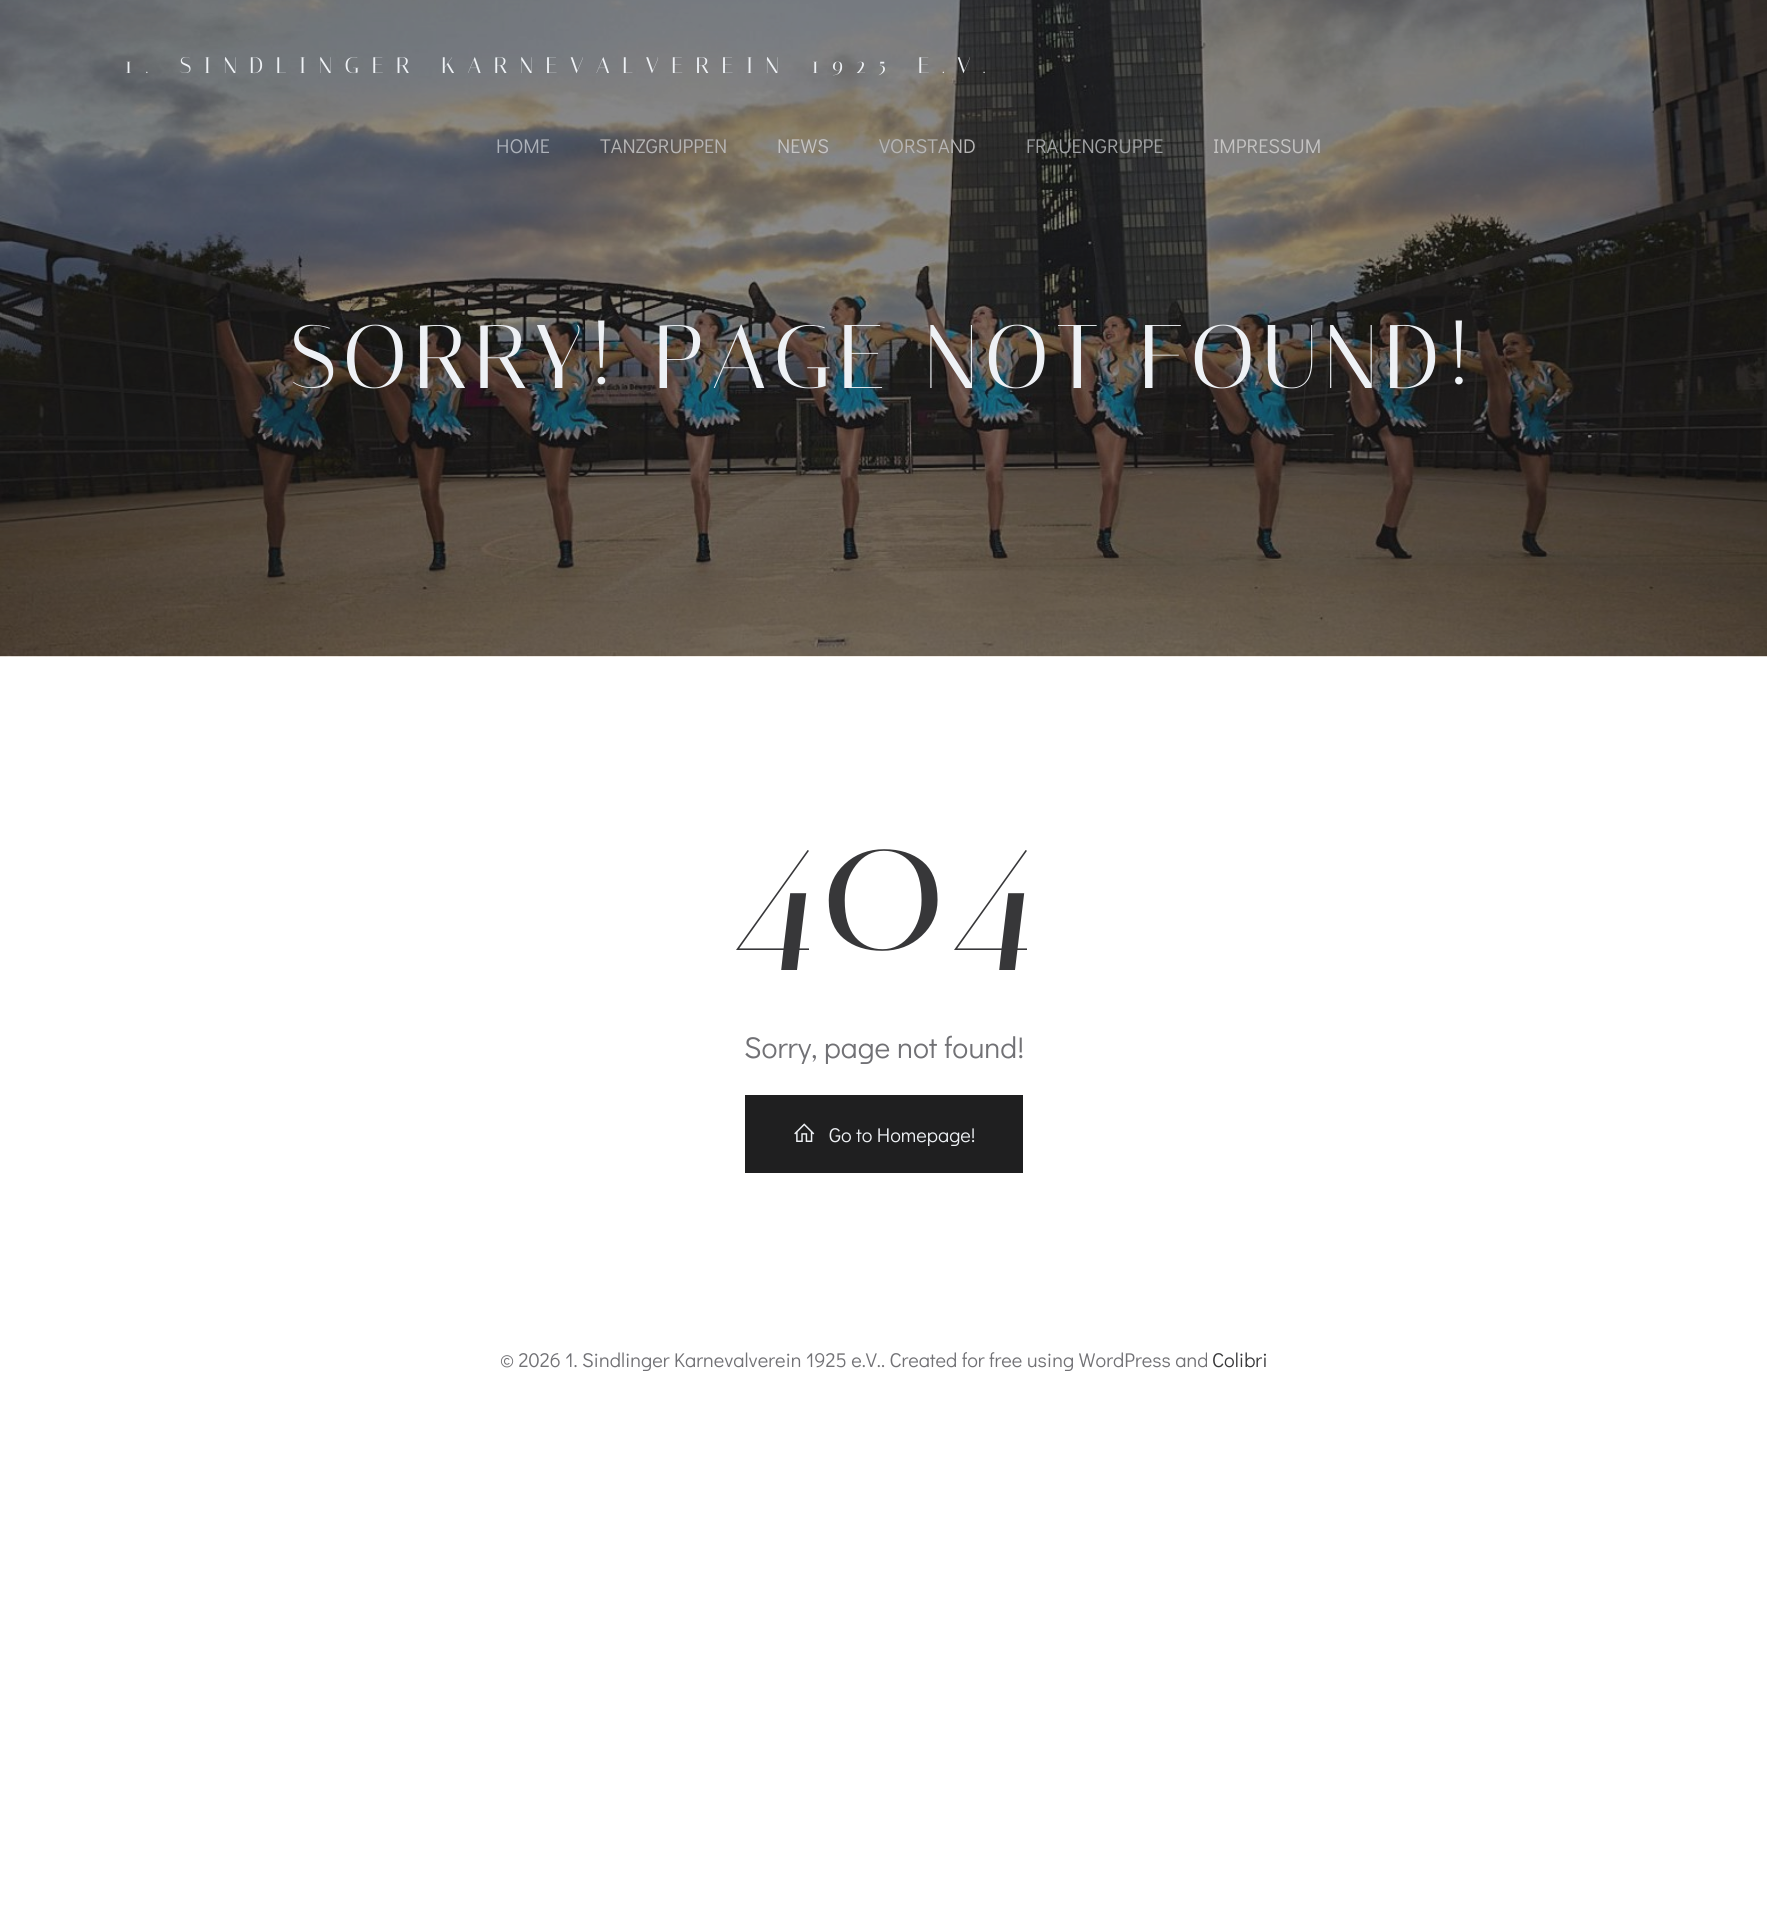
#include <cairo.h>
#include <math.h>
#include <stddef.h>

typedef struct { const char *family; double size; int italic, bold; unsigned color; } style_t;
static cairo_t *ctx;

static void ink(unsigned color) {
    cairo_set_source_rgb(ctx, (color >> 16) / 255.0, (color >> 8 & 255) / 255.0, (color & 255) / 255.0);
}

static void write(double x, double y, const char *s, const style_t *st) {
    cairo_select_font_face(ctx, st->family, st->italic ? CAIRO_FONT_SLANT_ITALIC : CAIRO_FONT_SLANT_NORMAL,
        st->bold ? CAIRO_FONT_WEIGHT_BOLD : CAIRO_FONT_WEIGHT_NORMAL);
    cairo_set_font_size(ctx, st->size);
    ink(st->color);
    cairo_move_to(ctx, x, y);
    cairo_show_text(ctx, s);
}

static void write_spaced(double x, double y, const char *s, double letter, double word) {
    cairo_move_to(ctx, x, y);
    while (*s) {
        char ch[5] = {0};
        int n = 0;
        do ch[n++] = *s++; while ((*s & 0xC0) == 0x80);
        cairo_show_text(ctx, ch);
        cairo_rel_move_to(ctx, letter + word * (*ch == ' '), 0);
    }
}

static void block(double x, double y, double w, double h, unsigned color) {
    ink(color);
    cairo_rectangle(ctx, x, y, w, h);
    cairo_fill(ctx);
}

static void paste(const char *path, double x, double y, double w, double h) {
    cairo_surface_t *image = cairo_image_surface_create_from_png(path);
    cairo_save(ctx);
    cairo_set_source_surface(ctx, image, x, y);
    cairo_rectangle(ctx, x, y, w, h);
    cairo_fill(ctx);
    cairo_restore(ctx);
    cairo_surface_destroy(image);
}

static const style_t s1 = {"Didact Gothic", 20, 0, 0, 0xadb2ba};
static const style_t s2 = {"Didact Gothic", 20, 0, 0, 0xb7b6b6};
static const style_t s3 = {"Didact Gothic", 20, 0, 0, 0xc5c4c3};
static const style_t s4 = {"Didact Gothic", 20, 0, 0, 0xa0a2a4};
static const style_t s5 = {"Italiana", 200, 0, 0, 0x373739};
static const style_t s6 = {"Didact Gothic", 30, 0, 0, 0x717175};
static const style_t s7 = {"Didact Gothic", 20, 0, 0, 0xeef1f5};
static const style_t s8 = {"Didact Gothic", 20, 0, 0, 0x717175};
static const style_t s9 = {"Didact Gothic", 20, 0, 0, 0x373739};

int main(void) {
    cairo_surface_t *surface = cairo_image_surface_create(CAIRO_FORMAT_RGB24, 1767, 1930);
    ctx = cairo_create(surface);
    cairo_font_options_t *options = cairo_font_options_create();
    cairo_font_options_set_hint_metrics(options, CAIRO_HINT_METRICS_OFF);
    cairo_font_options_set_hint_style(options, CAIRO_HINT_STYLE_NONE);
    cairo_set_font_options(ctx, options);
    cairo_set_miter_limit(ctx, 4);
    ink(0xffffff);
    cairo_paint(ctx);
    paste("pic1.png", 0, 0, 1767, 657);
    cairo_select_font_face(ctx, "Italiana", CAIRO_FONT_SLANT_NORMAL, CAIRO_FONT_WEIGHT_NORMAL);
    cairo_set_font_size(ctx, 22.5);
    ink(0xeef1f5);
    write_spaced(124, 73, "1. SINDLINGER KARNEVALVEREIN 1925 E.V.", 12.5, 0);
    write(496, 153, "HOME", &s1);
    write(600, 153, "TANZGRUPPEN", &s2);
    write(777, 153, "NEWS", &s3);
    write(879, 153, "VORSTAND", &s2);
    write(1026, 153, "FRAUENGRUPPE", &s4);
    write(1213, 153, "IMPRESSUM", &s3);
    cairo_select_font_face(ctx, "Italiana", CAIRO_FONT_SLANT_NORMAL, CAIRO_FONT_WEIGHT_NORMAL);
    cairo_set_font_size(ctx, 90);
    ink(0xeef1f5);
    write_spaced(290, 388, "SORRY! PAGE NOT FOUND!", 6.25, 0);
    write(730, 950, "404", &s5);
    write(744, 1058, "Sorry, page not found!", &s6);
    block(745, 1095, 278, 78, 0x1f1f20);
    paste("pic2.png", 794, 1123, 21, 19);
    write(829, 1142, "Go to Homepage!", &s7);
    write(500, 1367, "© 2026 1. Sindlinger Karnevalverein 1925 e.V.. Created for free using WordPress and", &s8);
    write(1212, 1367, "Colibri", &s9);
    cairo_surface_write_to_png(surface, "screenshot.png");
    cairo_font_options_destroy(options);
    cairo_destroy(ctx);
    cairo_surface_destroy(surface);
    return 0;
}
